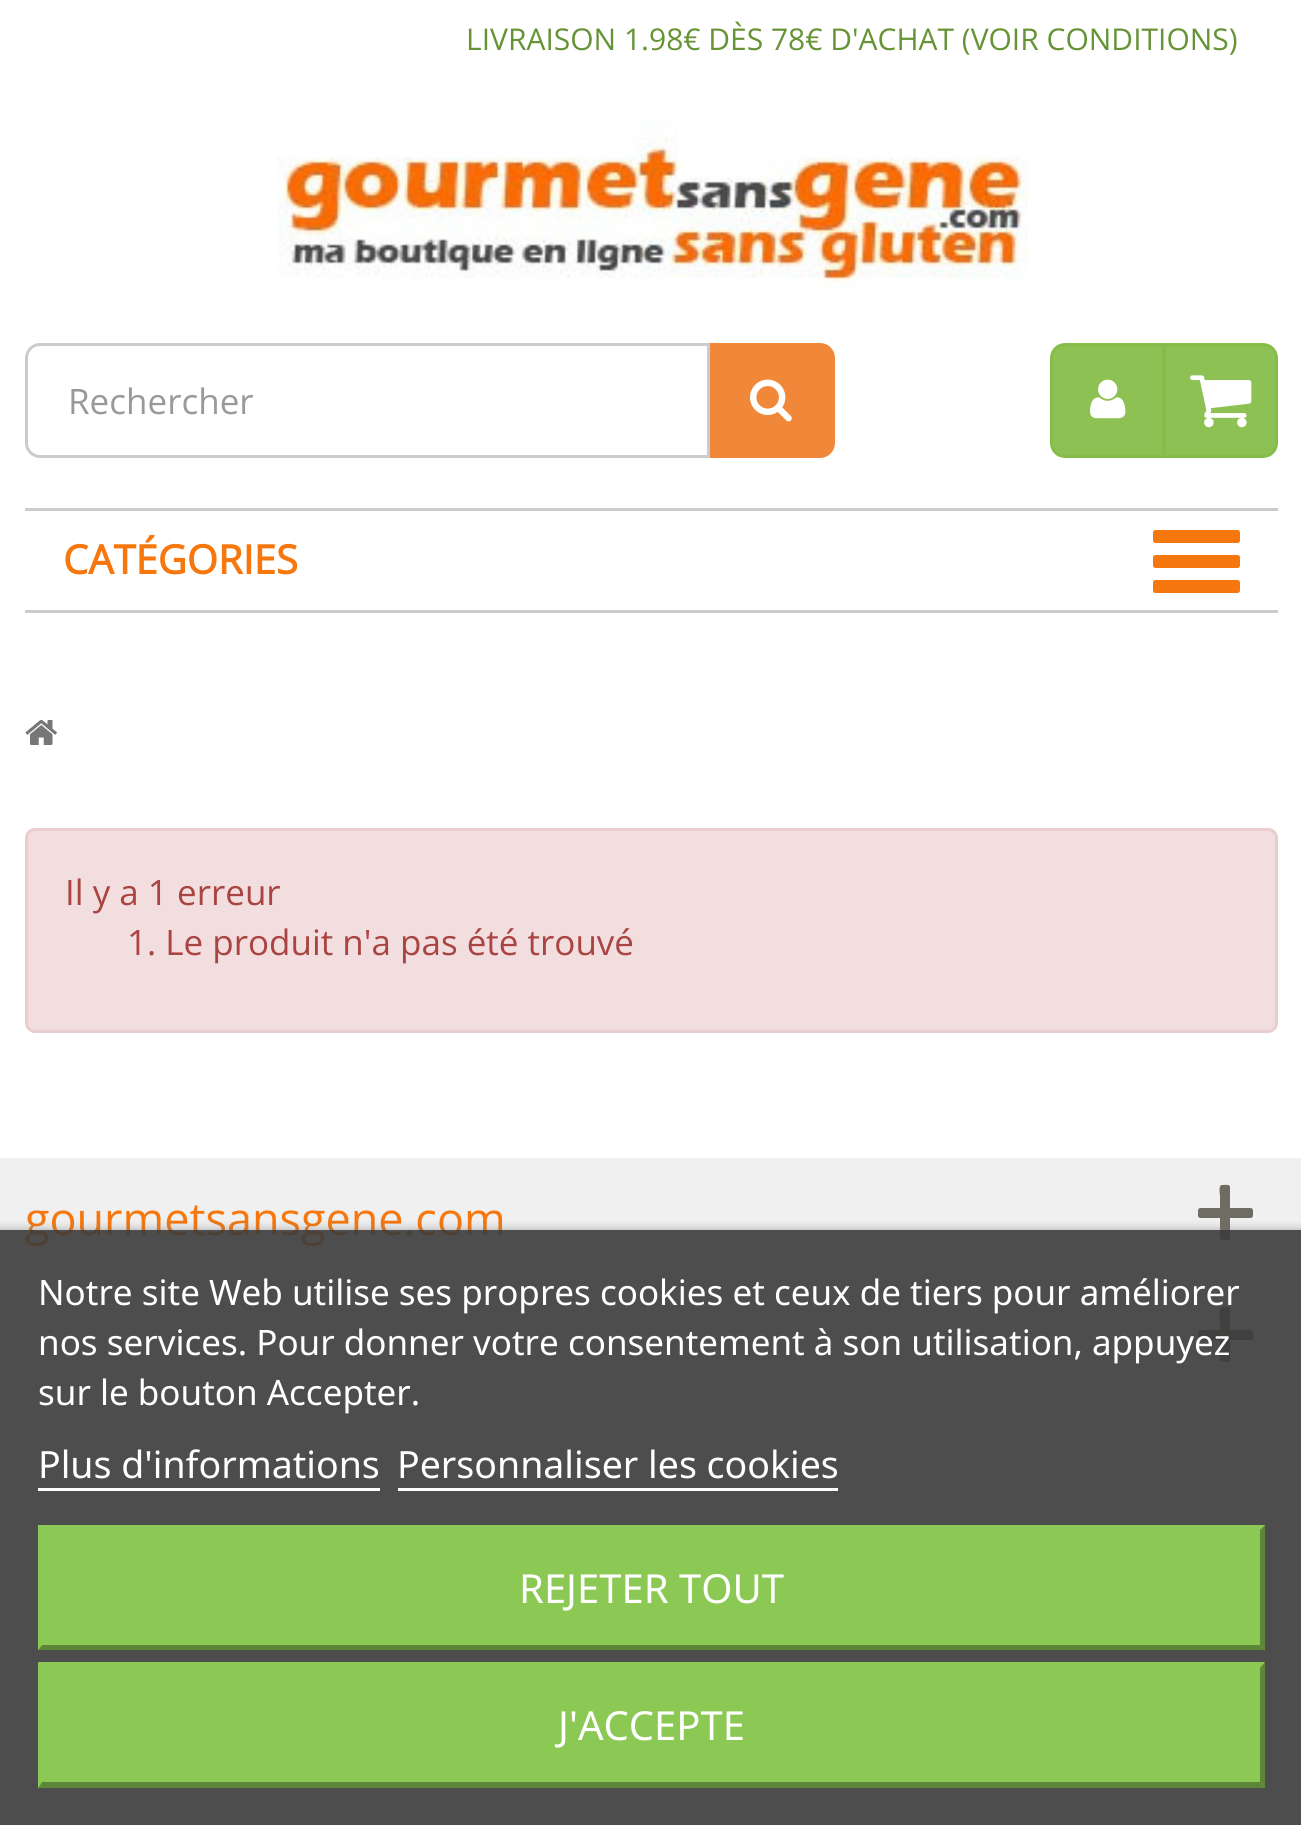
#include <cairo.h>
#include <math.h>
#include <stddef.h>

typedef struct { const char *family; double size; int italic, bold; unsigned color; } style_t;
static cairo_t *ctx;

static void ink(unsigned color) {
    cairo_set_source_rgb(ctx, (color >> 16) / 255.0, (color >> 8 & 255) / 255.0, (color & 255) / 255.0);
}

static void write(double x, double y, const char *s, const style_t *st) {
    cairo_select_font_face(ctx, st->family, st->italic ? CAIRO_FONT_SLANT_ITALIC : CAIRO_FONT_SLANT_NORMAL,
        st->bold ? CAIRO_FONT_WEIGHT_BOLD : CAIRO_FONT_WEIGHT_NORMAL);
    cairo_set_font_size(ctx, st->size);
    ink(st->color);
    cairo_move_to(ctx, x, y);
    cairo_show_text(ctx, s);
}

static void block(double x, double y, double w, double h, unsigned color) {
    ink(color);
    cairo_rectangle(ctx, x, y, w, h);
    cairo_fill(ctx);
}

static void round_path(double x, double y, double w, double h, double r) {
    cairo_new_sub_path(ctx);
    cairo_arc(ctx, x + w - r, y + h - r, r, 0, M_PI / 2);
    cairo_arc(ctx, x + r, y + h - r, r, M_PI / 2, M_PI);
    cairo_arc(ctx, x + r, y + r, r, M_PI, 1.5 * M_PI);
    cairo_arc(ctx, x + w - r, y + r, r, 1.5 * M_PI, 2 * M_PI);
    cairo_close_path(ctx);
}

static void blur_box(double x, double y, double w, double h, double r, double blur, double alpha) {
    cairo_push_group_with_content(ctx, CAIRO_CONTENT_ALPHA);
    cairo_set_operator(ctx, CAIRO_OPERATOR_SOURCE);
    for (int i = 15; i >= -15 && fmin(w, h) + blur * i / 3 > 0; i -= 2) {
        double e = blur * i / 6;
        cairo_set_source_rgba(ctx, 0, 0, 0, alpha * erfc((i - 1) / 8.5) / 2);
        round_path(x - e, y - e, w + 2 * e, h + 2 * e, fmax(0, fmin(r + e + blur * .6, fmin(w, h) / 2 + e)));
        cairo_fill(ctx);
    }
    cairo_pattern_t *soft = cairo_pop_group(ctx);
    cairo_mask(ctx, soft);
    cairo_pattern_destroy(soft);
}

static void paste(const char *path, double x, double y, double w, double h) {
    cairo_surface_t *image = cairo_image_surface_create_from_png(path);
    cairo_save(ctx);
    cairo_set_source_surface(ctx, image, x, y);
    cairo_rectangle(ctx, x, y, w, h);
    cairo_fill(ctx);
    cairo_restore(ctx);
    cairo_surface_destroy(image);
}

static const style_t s1 = {"Open Sans", 30, 0, 0, 0x669335};
static const style_t s2 = {"Open Sans", 35, 0, 0, 0x999999};
static const style_t s3 = {"Open Sans", 40, 0, 1, 0xf5770e};
static const style_t s4 = {"Open Sans", 35, 0, 0, 0xa94442};
static const style_t s5 = {"Open Sans", 45, 0, 0, 0xf5770e};
static const style_t s6 = {"Noto Sans", 35, 0, 0, 0xffffff};
static const style_t s7 = {"Noto Sans", 37.5, 0, 0, 0xffffff};
static const style_t s8 = {"Noto Sans", 40, 0, 0, 0xffffff};

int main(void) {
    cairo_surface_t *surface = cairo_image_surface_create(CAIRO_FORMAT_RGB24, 1301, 1825);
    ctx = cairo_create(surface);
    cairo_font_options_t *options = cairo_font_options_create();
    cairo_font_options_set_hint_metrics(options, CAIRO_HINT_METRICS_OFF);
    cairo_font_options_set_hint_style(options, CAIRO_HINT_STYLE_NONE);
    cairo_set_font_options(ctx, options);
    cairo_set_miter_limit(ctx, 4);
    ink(0xf0f0f0);
    cairo_paint(ctx);
    block(0, 0, 1301, 1158, 0xffffff);
    write(466, 50, "LIVRAISON 1.98€ DÈS 78€ D'ACHAT (VOIR CONDITIONS)", &s1);
    paste("pic1.png", 277, 118, 751, 174);
    ink(0xf18739);
    cairo_new_path(ctx);
    cairo_move_to(ctx, 709.5, 344.5);
    cairo_line_to(ctx, 820, 344.5);
    cairo_curve_to(ctx, 827.5, 344.5, 833.5, 350.5, 833.5, 358);
    cairo_line_to(ctx, 833.5, 443);
    cairo_curve_to(ctx, 833.5, 450.5, 827.5, 456.5, 820, 456.5);
    cairo_line_to(ctx, 709.5, 456.5);
    cairo_close_path(ctx);
    cairo_fill_preserve(ctx);
    cairo_set_line_width(ctx, 3);
    cairo_stroke(ctx);
    ink(0xffffff);
    cairo_new_path(ctx);
    cairo_move_to(ctx, 40, 344.5);
    cairo_line_to(ctx, 708.5, 344.5);
    cairo_line_to(ctx, 708.5, 456.5);
    cairo_line_to(ctx, 40, 456.5);
    cairo_curve_to(ctx, 32.5, 456.5, 26.5, 450.5, 26.5, 443);
    cairo_line_to(ctx, 26.5, 358);
    cairo_curve_to(ctx, 26.5, 350.5, 32.5, 344.5, 40, 344.5);
    cairo_close_path(ctx);
    cairo_fill_preserve(ctx);
    ink(0xcccccc);
    cairo_stroke(ctx);
    write(68, 414, "Rechercher", &s2);
    paste("pic2.png", 750, 379, 42, 43);
    ink(0x8dc153);
    cairo_new_path(ctx);
    cairo_move_to(ctx, 1164.5, 344.5);
    cairo_line_to(ctx, 1263, 344.5);
    cairo_curve_to(ctx, 1270.5, 344.5, 1276.5, 350.5, 1276.5, 358);
    cairo_line_to(ctx, 1276.5, 443);
    cairo_curve_to(ctx, 1276.5, 450.5, 1270.5, 456.5, 1263, 456.5);
    cairo_line_to(ctx, 1164.5, 456.5);
    cairo_close_path(ctx);
    cairo_fill_preserve(ctx);
    ink(0x86bd48);
    cairo_stroke(ctx);
    ink(0x8dc153);
    cairo_new_path(ctx);
    cairo_move_to(ctx, 1065, 344.5);
    cairo_line_to(ctx, 1163.5, 344.5);
    cairo_line_to(ctx, 1163.5, 456.5);
    cairo_line_to(ctx, 1065, 456.5);
    cairo_curve_to(ctx, 1057.5, 456.5, 1051.5, 450.5, 1051.5, 443);
    cairo_line_to(ctx, 1051.5, 358);
    cairo_curve_to(ctx, 1051.5, 350.5, 1057.5, 344.5, 1065, 344.5);
    cairo_close_path(ctx);
    cairo_fill_preserve(ctx);
    ink(0x86bd48);
    cairo_stroke(ctx);
    paste("pic3.png", 1090, 379, 36, 40);
    paste("pic4.png", 1190, 375, 62, 53);
    block(25, 508, 1253, 3, 0xcccccc);
    block(25, 610, 1253, 3, 0xcccccc);
    write(63, 574, "CATÉGORIES", &s3);
    round_path(1153, 555, 87, 13, 2.5);
    cairo_fill(ctx);
    round_path(1153, 530, 87, 13, 2.5);
    cairo_fill(ctx);
    round_path(1153, 580, 87, 13, 2.5);
    cairo_fill(ctx);
    paste("pic5.png", 25, 720, 32, 25);
    ink(0xf2dede);
    round_path(26.5, 829.5, 1250, 202, 8.5);
    cairo_fill_preserve(ctx);
    ink(0xebccd1);
    cairo_stroke(ctx);
    write(65, 905, "Il y a 1 erreur", &s4);
    write(127, 955, "1. Le produit n'a pas été trouvé", &s4);
    write(25, 1235, "gourmetsansgene.com", &s5);
    ink(0x6f6c63);
    round_path(1198, 1208, 55, 10, 2.5);
    cairo_fill(ctx);
    cairo_new_path(ctx);
    cairo_move_to(ctx, 1230, 1187);
    cairo_line_to(ctx, 1230, 1238);
    cairo_curve_to(ctx, 1230, 1239, 1229, 1240, 1228, 1240);
    cairo_curve_to(ctx, 1218, 1240, 1220, 1239, 1220, 1229);
    cairo_line_to(ctx, 1220, 1196);
    cairo_curve_to(ctx, 1220, 1195, 1218, 1185, 1222, 1185);
    cairo_curve_to(ctx, 1225, 1185, 1230, 1184, 1230, 1187);
    cairo_close_path(ctx);
    cairo_fill(ctx);
    round_path(1198, 1330, 55, 10, 2.5);
    cairo_fill(ctx);
    cairo_new_path(ctx);
    cairo_move_to(ctx, 1230, 1309);
    cairo_line_to(ctx, 1230, 1360);
    cairo_curve_to(ctx, 1230, 1361, 1229, 1362, 1228, 1362);
    cairo_curve_to(ctx, 1218, 1362, 1220, 1361, 1220, 1351);
    cairo_line_to(ctx, 1220, 1318);
    cairo_curve_to(ctx, 1220, 1317, 1218, 1307, 1222, 1307);
    cairo_curve_to(ctx, 1225, 1307, 1230, 1306, 1230, 1309);
    cairo_close_path(ctx);
    cairo_fill(ctx);
    cairo_save(ctx);
    cairo_rectangle(ctx, 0, 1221, 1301, 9);
    cairo_clip(ctx);
    ink(0x707070);
    blur_box(0, 1233, 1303, 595, 0, 6, 1);
    cairo_restore(ctx);
    cairo_set_source_rgba(ctx, 0.231, 0.231, 0.231, 0.9);
    cairo_rectangle(ctx, 0, 1230, 1301, 595);
    cairo_fill(ctx);
    write(38, 1305, "Notre site Web utilise ses propres cookies et ceux de tiers pour améliorer", &s6);
    write(38, 1355, "nos services. Pour donner votre consentement à son utilisation, appuyez", &s6);
    write(38, 1405, "sur le bouton Accepter.", &s6);
    write(38, 1478, "Plus d'informations", &s7);
    block(38, 1488, 342, 3, 0xffffff);
    write(397, 1478, "Personnaliser les cookies", &s7);
    block(398, 1488, 440, 3, 0xffffff);
    block(38, 1525, 1227, 125, 0x8bc954);
    ink(0x5d8638);
    cairo_new_path(ctx);
    cairo_move_to(ctx, 1265, 1525);
    cairo_line_to(ctx, 1265, 1650);
    cairo_line_to(ctx, 1260, 1645);
    cairo_line_to(ctx, 1260, 1530);
    cairo_close_path(ctx);
    cairo_fill(ctx);
    cairo_new_path(ctx);
    cairo_move_to(ctx, 1265, 1650);
    cairo_line_to(ctx, 38, 1650);
    cairo_line_to(ctx, 42, 1645);
    cairo_line_to(ctx, 1260, 1645);
    cairo_close_path(ctx);
    cairo_fill(ctx);
    ink(0x8bc954);
    cairo_new_path(ctx);
    cairo_move_to(ctx, 38, 1650);
    cairo_line_to(ctx, 38, 1525);
    cairo_line_to(ctx, 42, 1530);
    cairo_line_to(ctx, 42, 1645);
    cairo_close_path(ctx);
    cairo_fill(ctx);
    write(519, 1603, "REJETER TOUT", &s8);
    block(38, 1663, 1227, 125, 0x8bc954);
    cairo_new_path(ctx);
    cairo_move_to(ctx, 38, 1662);
    cairo_line_to(ctx, 1265, 1662);
    cairo_line_to(ctx, 1260, 1668);
    cairo_line_to(ctx, 42, 1668);
    cairo_close_path(ctx);
    cairo_fill(ctx);
    ink(0x5d8638);
    cairo_new_path(ctx);
    cairo_move_to(ctx, 1265, 1662);
    cairo_line_to(ctx, 1265, 1788);
    cairo_line_to(ctx, 1260, 1782);
    cairo_line_to(ctx, 1260, 1668);
    cairo_close_path(ctx);
    cairo_fill(ctx);
    cairo_new_path(ctx);
    cairo_move_to(ctx, 1265, 1788);
    cairo_line_to(ctx, 38, 1788);
    cairo_line_to(ctx, 42, 1782);
    cairo_line_to(ctx, 1260, 1782);
    cairo_close_path(ctx);
    cairo_fill(ctx);
    ink(0x8bc954);
    cairo_new_path(ctx);
    cairo_move_to(ctx, 38, 1788);
    cairo_line_to(ctx, 38, 1662);
    cairo_line_to(ctx, 42, 1668);
    cairo_line_to(ctx, 42, 1782);
    cairo_close_path(ctx);
    cairo_fill(ctx);
    write(558, 1740, "J'ACCEPTE", &s8);
    cairo_surface_write_to_png(surface, "screenshot.png");
    cairo_font_options_destroy(options);
    cairo_destroy(ctx);
    cairo_surface_destroy(surface);
    return 0;
}
